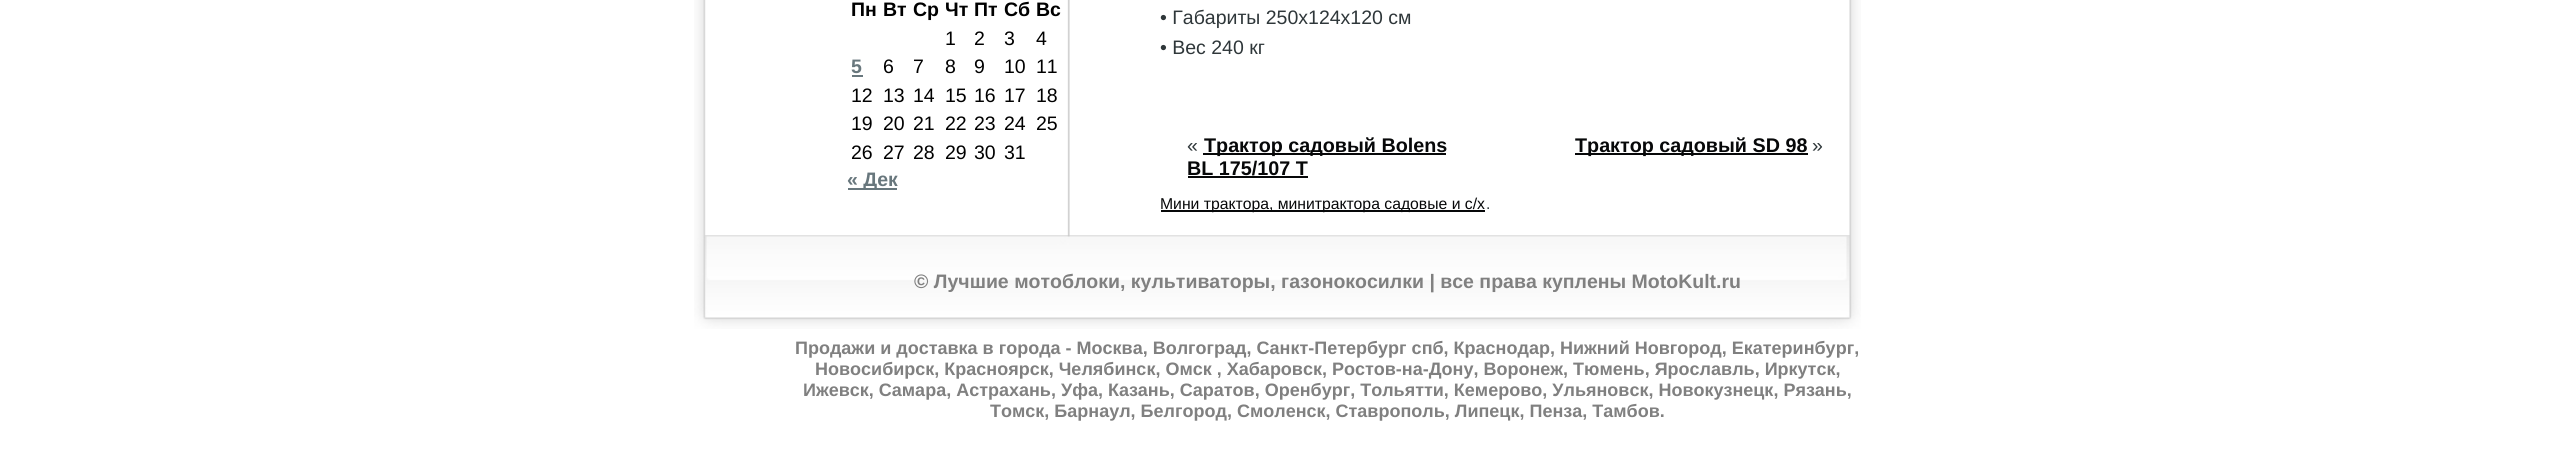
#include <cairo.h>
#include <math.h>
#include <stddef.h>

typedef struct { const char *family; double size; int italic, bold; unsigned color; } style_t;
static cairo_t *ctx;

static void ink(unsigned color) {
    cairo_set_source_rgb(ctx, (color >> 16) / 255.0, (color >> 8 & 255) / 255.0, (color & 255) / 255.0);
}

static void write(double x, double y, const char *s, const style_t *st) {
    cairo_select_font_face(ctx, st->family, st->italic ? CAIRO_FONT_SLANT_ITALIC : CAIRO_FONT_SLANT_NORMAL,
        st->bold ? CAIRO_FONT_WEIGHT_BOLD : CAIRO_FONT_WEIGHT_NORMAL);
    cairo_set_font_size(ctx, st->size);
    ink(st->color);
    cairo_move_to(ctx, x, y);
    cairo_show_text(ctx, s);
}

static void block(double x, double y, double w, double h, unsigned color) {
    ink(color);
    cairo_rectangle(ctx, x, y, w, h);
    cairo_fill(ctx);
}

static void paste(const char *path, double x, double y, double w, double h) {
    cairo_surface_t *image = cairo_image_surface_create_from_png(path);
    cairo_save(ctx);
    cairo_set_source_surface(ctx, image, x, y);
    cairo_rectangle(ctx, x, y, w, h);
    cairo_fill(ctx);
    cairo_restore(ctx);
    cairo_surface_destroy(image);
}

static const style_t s1 = {"Liberation Sans", 19.5, 0, 1, 0x000000};
static const style_t s2 = {"Liberation Sans", 19.5, 0, 0, 0x000000};
static const style_t s3 = {"Liberation Sans", 19.5, 0, 1, 0x68777d};
static const style_t s4 = {"Liberation Sans", 19.5, 0, 0, 0x2f373a};
static const style_t s5 = {"Liberation Sans", 19.75, 0, 1, 0x070809};
static const style_t s6 = {"Liberation Sans", 15.75, 0, 0, 0x070809};
static const style_t s7 = {"Liberation Sans", 15.75, 0, 0, 0x2f373a};
static const style_t s8 = {"Liberation Sans", 19.5, 0, 1, 0x808080};
static const style_t s9 = {"Liberation Sans", 18, 0, 1, 0x808080};

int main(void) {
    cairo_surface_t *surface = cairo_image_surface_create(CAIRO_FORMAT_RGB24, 2554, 462);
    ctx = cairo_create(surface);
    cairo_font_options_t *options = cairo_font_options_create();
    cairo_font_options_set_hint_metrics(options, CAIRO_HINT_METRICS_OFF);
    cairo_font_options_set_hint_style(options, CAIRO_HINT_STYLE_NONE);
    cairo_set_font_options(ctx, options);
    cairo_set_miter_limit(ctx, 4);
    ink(0xffffff);
    cairo_paint(ctx);
    paste("pic1.png", 694, 0, 1167, 235);
    write(851, 16, "Пн", &s1);
    write(883, 16, "Вт", &s1);
    write(913, 16, "Ср", &s1);
    write(945, 16, "Чт", &s1);
    write(974, 16, "Пт", &s1);
    write(1004, 16, "Сб", &s1);
    write(1036, 16, "Вс", &s1);
    write(945, 45, "1", &s2);
    write(974, 45, "2", &s2);
    write(1004, 45, "3", &s2);
    write(1036, 45, "4", &s2);
    write(851, 73, "5", &s3);
    block(852, 75, 11, 2, 0x68777d);
    write(883, 73, "6", &s2);
    write(913, 73, "7", &s2);
    write(945, 73, "8", &s2);
    write(974, 73, "9", &s2);
    write(1004, 73, "10", &s2);
    write(1036, 73, "11", &s2);
    write(851, 102, "12", &s2);
    write(883, 102, "13", &s2);
    write(913, 102, "14", &s2);
    write(945, 102, "15", &s2);
    write(974, 102, "16", &s2);
    write(1004, 102, "17", &s2);
    write(1036, 102, "18", &s2);
    write(851, 130, "19", &s2);
    write(883, 130, "20", &s2);
    write(913, 130, "21", &s2);
    write(945, 130, "22", &s2);
    write(974, 130, "23", &s2);
    write(1004, 130, "24", &s2);
    write(1036, 130, "25", &s2);
    write(851, 159, "26", &s2);
    write(883, 159, "27", &s2);
    write(913, 159, "28", &s2);
    write(945, 159, "29", &s2);
    write(974, 159, "30", &s2);
    write(1004, 159, "31", &s2);
    block(848, 188, 49, 2, 0x68777d);
    write(847, 186, "« Дек", &s3);
    write(1160, 24, "• Габариты 250х124х120 см", &s4);
    write(1160, 54, "• Вес 240 кг", &s4);
    write(1187, 152, "«", &s4);
    block(1203, 153, 243, 2, 0x070809);
    write(1204, 152, "Трактор садовый Bolens", &s5);
    write(1187, 175, "BL 175/107 T", &s5);
    block(1188, 176, 120, 2, 0x070809);
    block(1575, 153, 233, 2, 0x070809);
    write(1575, 152, "Трактор садовый SD 98", &s5);
    write(1812, 152, "»", &s4);
    block(1161, 210, 324, 2, 0x070809);
    write(1160, 209, "Мини трактора, минитрактора садовые и с/х", &s6);
    write(1486, 209, ".", &s7);
    paste("pic2.png", 694, 235, 1167, 94);
    write(914, 288, "© Лучшие мотоблоки, культиваторы, газонокосилки | все права куплены MotoKult.ru", &s8);
    write(795, 354, "Продажи и доставка в города - Москва, Волгоград, Санкт-Петербург спб, Краснодар, Нижний Новгород, Екатеринбург,", &s9);
    write(815, 375, "Новосибирск, Красноярск, Челябинск, Омск , Хабаровск, Ростов-на-Дону, Воронеж, Тюмень, Ярославль, Иркутск,", &s9);
    write(803, 396, "Ижевск, Самара, Астрахань, Уфа, Казань, Саратов, Оренбург, Тольятти, Кемерово, Ульяновск, Новокузнецк, Рязань,", &s9);
    write(990, 417, "Томск, Барнаул, Белгород, Смоленск, Ставрополь, Липецк, Пенза, Тамбов.", &s9);
    cairo_surface_write_to_png(surface, "screenshot.png");
    cairo_font_options_destroy(options);
    cairo_destroy(ctx);
    cairo_surface_destroy(surface);
    return 0;
}
